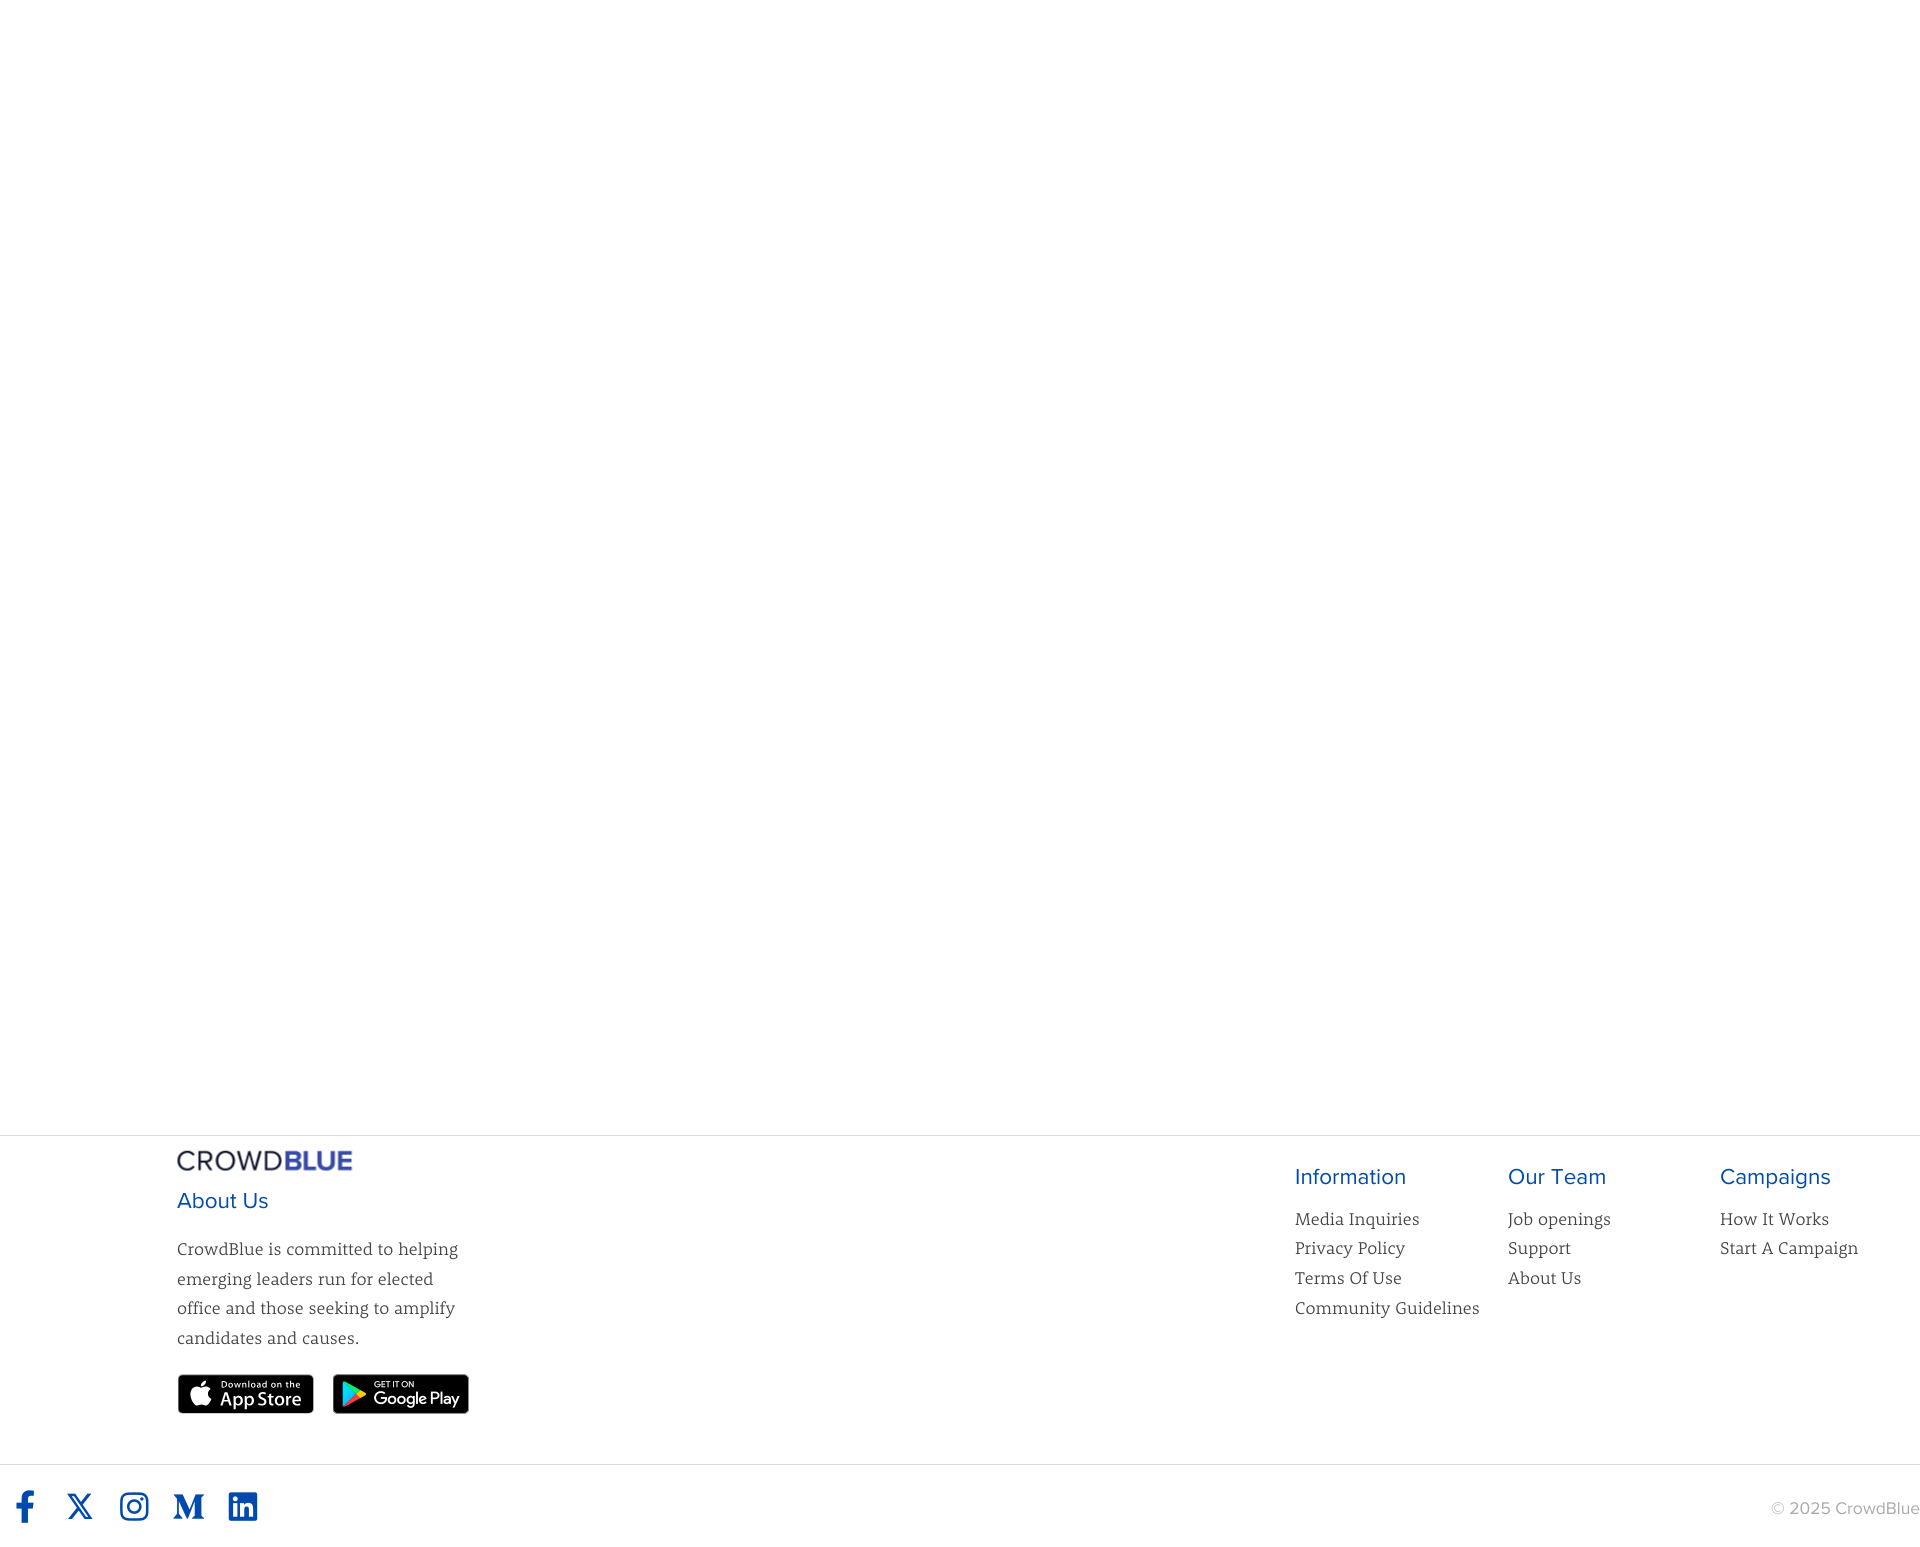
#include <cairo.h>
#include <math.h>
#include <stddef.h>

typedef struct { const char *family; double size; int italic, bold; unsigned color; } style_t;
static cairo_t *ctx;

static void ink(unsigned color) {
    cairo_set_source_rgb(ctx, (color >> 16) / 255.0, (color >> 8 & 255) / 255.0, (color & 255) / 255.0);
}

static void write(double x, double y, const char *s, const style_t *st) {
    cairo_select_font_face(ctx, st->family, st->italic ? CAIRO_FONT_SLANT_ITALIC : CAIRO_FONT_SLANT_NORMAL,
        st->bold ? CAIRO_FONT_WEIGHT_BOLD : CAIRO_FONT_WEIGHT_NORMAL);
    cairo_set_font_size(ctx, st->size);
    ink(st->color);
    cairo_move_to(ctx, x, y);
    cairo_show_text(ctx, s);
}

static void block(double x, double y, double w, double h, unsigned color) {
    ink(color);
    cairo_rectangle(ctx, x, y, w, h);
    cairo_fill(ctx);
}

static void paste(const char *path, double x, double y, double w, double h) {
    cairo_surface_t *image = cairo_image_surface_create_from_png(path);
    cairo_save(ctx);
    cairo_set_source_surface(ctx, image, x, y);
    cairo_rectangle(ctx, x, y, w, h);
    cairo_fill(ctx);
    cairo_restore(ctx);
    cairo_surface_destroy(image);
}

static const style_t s1 = {"Proxima Nova", 22.5, 0, 0, 0x004aad};
static const style_t s2 = {"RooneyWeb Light", 17.5, 0, 0, 0x444444};
static const style_t s3 = {"Proxima Nova", 17.5, 0, 0, 0xaaaaaa};

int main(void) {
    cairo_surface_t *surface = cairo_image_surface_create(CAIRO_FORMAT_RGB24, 1920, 1547);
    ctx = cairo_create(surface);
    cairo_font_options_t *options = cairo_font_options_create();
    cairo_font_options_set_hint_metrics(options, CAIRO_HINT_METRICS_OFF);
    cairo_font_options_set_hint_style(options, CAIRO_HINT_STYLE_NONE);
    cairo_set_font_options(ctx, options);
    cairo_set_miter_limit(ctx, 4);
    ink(0xffffff);
    cairo_paint(ctx);
    block(0, 1135, 1920, 1, 0xdddddd);
    paste("pic1.png", 177, 1150, 176, 21);
    write(177, 1208, "About Us", &s1);
    write(177, 1255, "CrowdBlue is committed to helping", &s2);
    write(177, 1285, "emerging leaders run for elected", &s2);
    write(177, 1314, "office and those seeking to amplify", &s2);
    write(177, 1344, "candidates and causes.", &s2);
    paste("pic2.png", 178, 1374, 136, 40);
    paste("pic3.png", 333, 1374, 136, 40);
    write(1295, 1184, "Information", &s1);
    write(1295, 1225, "Media Inquiries", &s2);
    write(1295, 1254, "Privacy Policy", &s2);
    write(1295, 1284, "Terms Of Use", &s2);
    write(1295, 1314, "Community Guidelines", &s2);
    write(1508, 1184, "Our Team", &s1);
    write(1508, 1225, "Job openings", &s2);
    write(1508, 1254, "Support", &s2);
    write(1508, 1284, "About Us", &s2);
    write(1720, 1184, "Campaigns", &s1);
    write(1720, 1225, "How It Works", &s2);
    write(1720, 1254, "Start A Campaign", &s2);
    block(0, 1464, 1920, 1, 0xdbdbdb);
    paste("pic4.png", 16, 1490, 18, 33);
    paste("pic5.png", 67, 1493, 26, 26);
    paste("pic6.png", 120, 1492, 29, 29);
    paste("pic7.png", 173, 1494, 32, 25);
    paste("pic8.png", 228, 1492, 30, 29);
    write(1771, 1514, "© 2025 CrowdBlue", &s3);
    cairo_surface_write_to_png(surface, "screenshot.png");
    cairo_font_options_destroy(options);
    cairo_destroy(ctx);
    cairo_surface_destroy(surface);
    return 0;
}
